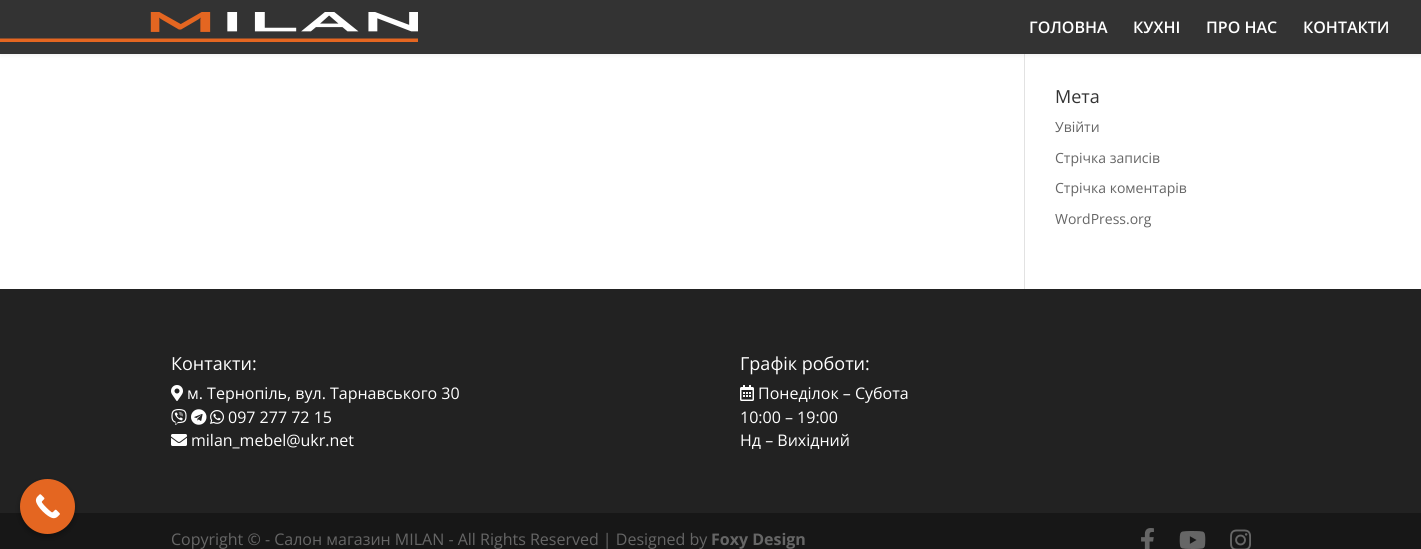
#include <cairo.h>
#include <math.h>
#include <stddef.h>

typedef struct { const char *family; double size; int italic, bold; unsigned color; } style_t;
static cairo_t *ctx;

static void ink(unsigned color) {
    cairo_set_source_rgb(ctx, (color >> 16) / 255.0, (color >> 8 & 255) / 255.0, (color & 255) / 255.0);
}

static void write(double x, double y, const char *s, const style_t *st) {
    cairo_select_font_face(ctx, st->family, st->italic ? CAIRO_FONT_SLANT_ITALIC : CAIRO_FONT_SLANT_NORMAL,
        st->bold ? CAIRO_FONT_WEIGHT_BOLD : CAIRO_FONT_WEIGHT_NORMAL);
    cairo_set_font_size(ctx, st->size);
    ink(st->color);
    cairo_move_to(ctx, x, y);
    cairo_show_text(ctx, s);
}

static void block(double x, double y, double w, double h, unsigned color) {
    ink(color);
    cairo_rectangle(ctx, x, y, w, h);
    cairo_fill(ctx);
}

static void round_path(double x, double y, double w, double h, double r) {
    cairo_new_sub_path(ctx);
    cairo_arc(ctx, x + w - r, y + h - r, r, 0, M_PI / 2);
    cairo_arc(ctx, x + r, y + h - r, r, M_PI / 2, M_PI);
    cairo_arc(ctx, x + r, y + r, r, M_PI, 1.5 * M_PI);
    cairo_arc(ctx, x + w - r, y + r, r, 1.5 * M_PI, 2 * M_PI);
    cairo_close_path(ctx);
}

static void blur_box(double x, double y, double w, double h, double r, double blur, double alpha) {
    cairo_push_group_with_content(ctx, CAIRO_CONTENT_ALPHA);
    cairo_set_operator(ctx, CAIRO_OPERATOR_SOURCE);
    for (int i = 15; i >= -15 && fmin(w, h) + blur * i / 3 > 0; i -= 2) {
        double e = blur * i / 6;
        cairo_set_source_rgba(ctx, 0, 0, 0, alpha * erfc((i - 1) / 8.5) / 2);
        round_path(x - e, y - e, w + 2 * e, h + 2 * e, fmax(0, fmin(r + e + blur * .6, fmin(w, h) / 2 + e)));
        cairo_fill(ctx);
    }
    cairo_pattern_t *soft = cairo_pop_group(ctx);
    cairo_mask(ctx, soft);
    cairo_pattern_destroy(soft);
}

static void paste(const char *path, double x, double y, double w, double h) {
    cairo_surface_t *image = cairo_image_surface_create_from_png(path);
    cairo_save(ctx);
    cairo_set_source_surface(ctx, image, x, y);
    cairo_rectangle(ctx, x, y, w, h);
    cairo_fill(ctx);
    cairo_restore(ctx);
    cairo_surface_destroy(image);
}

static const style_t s1 = {"Open Sans SemiBold", 16, 0, 0, 0xffffff};
static const style_t s2 = {"Open Sans", 18, 0, 0, 0x333333};
static const style_t s3 = {"Open Sans", 14, 0, 0, 0x666666};
static const style_t s4 = {"Open Sans", 18, 0, 0, 0xffffff};
static const style_t s5 = {"Open Sans", 16, 0, 0, 0xffffff};
static const style_t s6 = {"Open Sans", 16, 0, 0, 0x666666};
static const style_t s7 = {"Open Sans", 16, 0, 1, 0x666666};

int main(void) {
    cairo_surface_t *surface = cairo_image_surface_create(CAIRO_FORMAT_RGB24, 1421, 549);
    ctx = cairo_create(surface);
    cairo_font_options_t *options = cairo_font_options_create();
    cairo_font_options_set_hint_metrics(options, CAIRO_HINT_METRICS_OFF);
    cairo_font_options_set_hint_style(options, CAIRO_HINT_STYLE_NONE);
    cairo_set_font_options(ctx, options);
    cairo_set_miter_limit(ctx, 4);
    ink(0xffffff);
    cairo_paint(ctx);
    block(0, 289, 1421, 224, 0x222222);
    block(0, 513, 1421, 36, 0x171717);
    ink(0x000000);
    blur_box(20, 482, 55, 55, 27.5, 3, 0.3);
    ink(0xe46621);
    cairo_arc(ctx, 47.5, 506.5, 27.5, 0, 2 * M_PI);
    cairo_fill(ctx);
    paste("pic1.png", 35, 494, 25, 25);
    block(1024, 54, 1, 235, 0xe2e2e2);
    ink(0x000000);
    blur_box(0, 0, 1421, 54, 0, 3.5, 0.1);
    block(0, 0, 1421, 54, 0x333333);
    paste("pic2.png", 0, 12, 418, 30);
    write(1029, 33, "ГОЛОВНА", &s1);
    write(1133, 33, "КУХНІ", &s1);
    write(1206, 33, "ПРО НАС", &s1);
    write(1303, 33, "КОНТАКТИ", &s1);
    write(1055, 103, "Мета", &s2);
    write(1055, 132, "Увійти", &s3);
    write(1055, 163, "Стрічка записів", &s3);
    write(1055, 193, "Стрічка коментарів", &s3);
    write(1055, 224, "WordPress.org", &s3);
    write(171, 370, "Контакти:", &s4);
    paste("pic3.png", 171, 385, 12, 16);
    write(187, 399, "м. Тернопіль, вул. Тарнавського 30", &s5);
    paste("pic4.png", 171, 409, 16, 16);
    paste("pic5.png", 191, 409, 16, 16);
    paste("pic6.png", 210, 410, 14, 14);
    write(228, 423, "097 277 72 15", &s5);
    paste("pic7.png", 171, 434, 16, 12);
    write(191, 446, "milan_mebel@ukr.net", &s5);
    write(740, 370, "Графік роботи:", &s4);
    paste("pic8.png", 740, 385, 14, 16);
    write(758, 399, "Понеділок – Субота", &s5);
    write(740, 423, "10:00 – 19:00", &s5);
    write(740, 446, "Нд – Вихідний", &s5);
    write(171, 545, "Copyright © - Салон магазин МILAN - All Rights Reserved | Designed by", &s6);
    write(711, 545, "Foxy Design", &s7);
    paste("pic9.png", 1141, 528, 13, 21);
    paste("pic10.png", 1179, 531, 27, 18);
    paste("pic11.png", 1230, 529, 21, 20);
    cairo_surface_write_to_png(surface, "screenshot.png");
    cairo_font_options_destroy(options);
    cairo_destroy(ctx);
    cairo_surface_destroy(surface);
    return 0;
}
